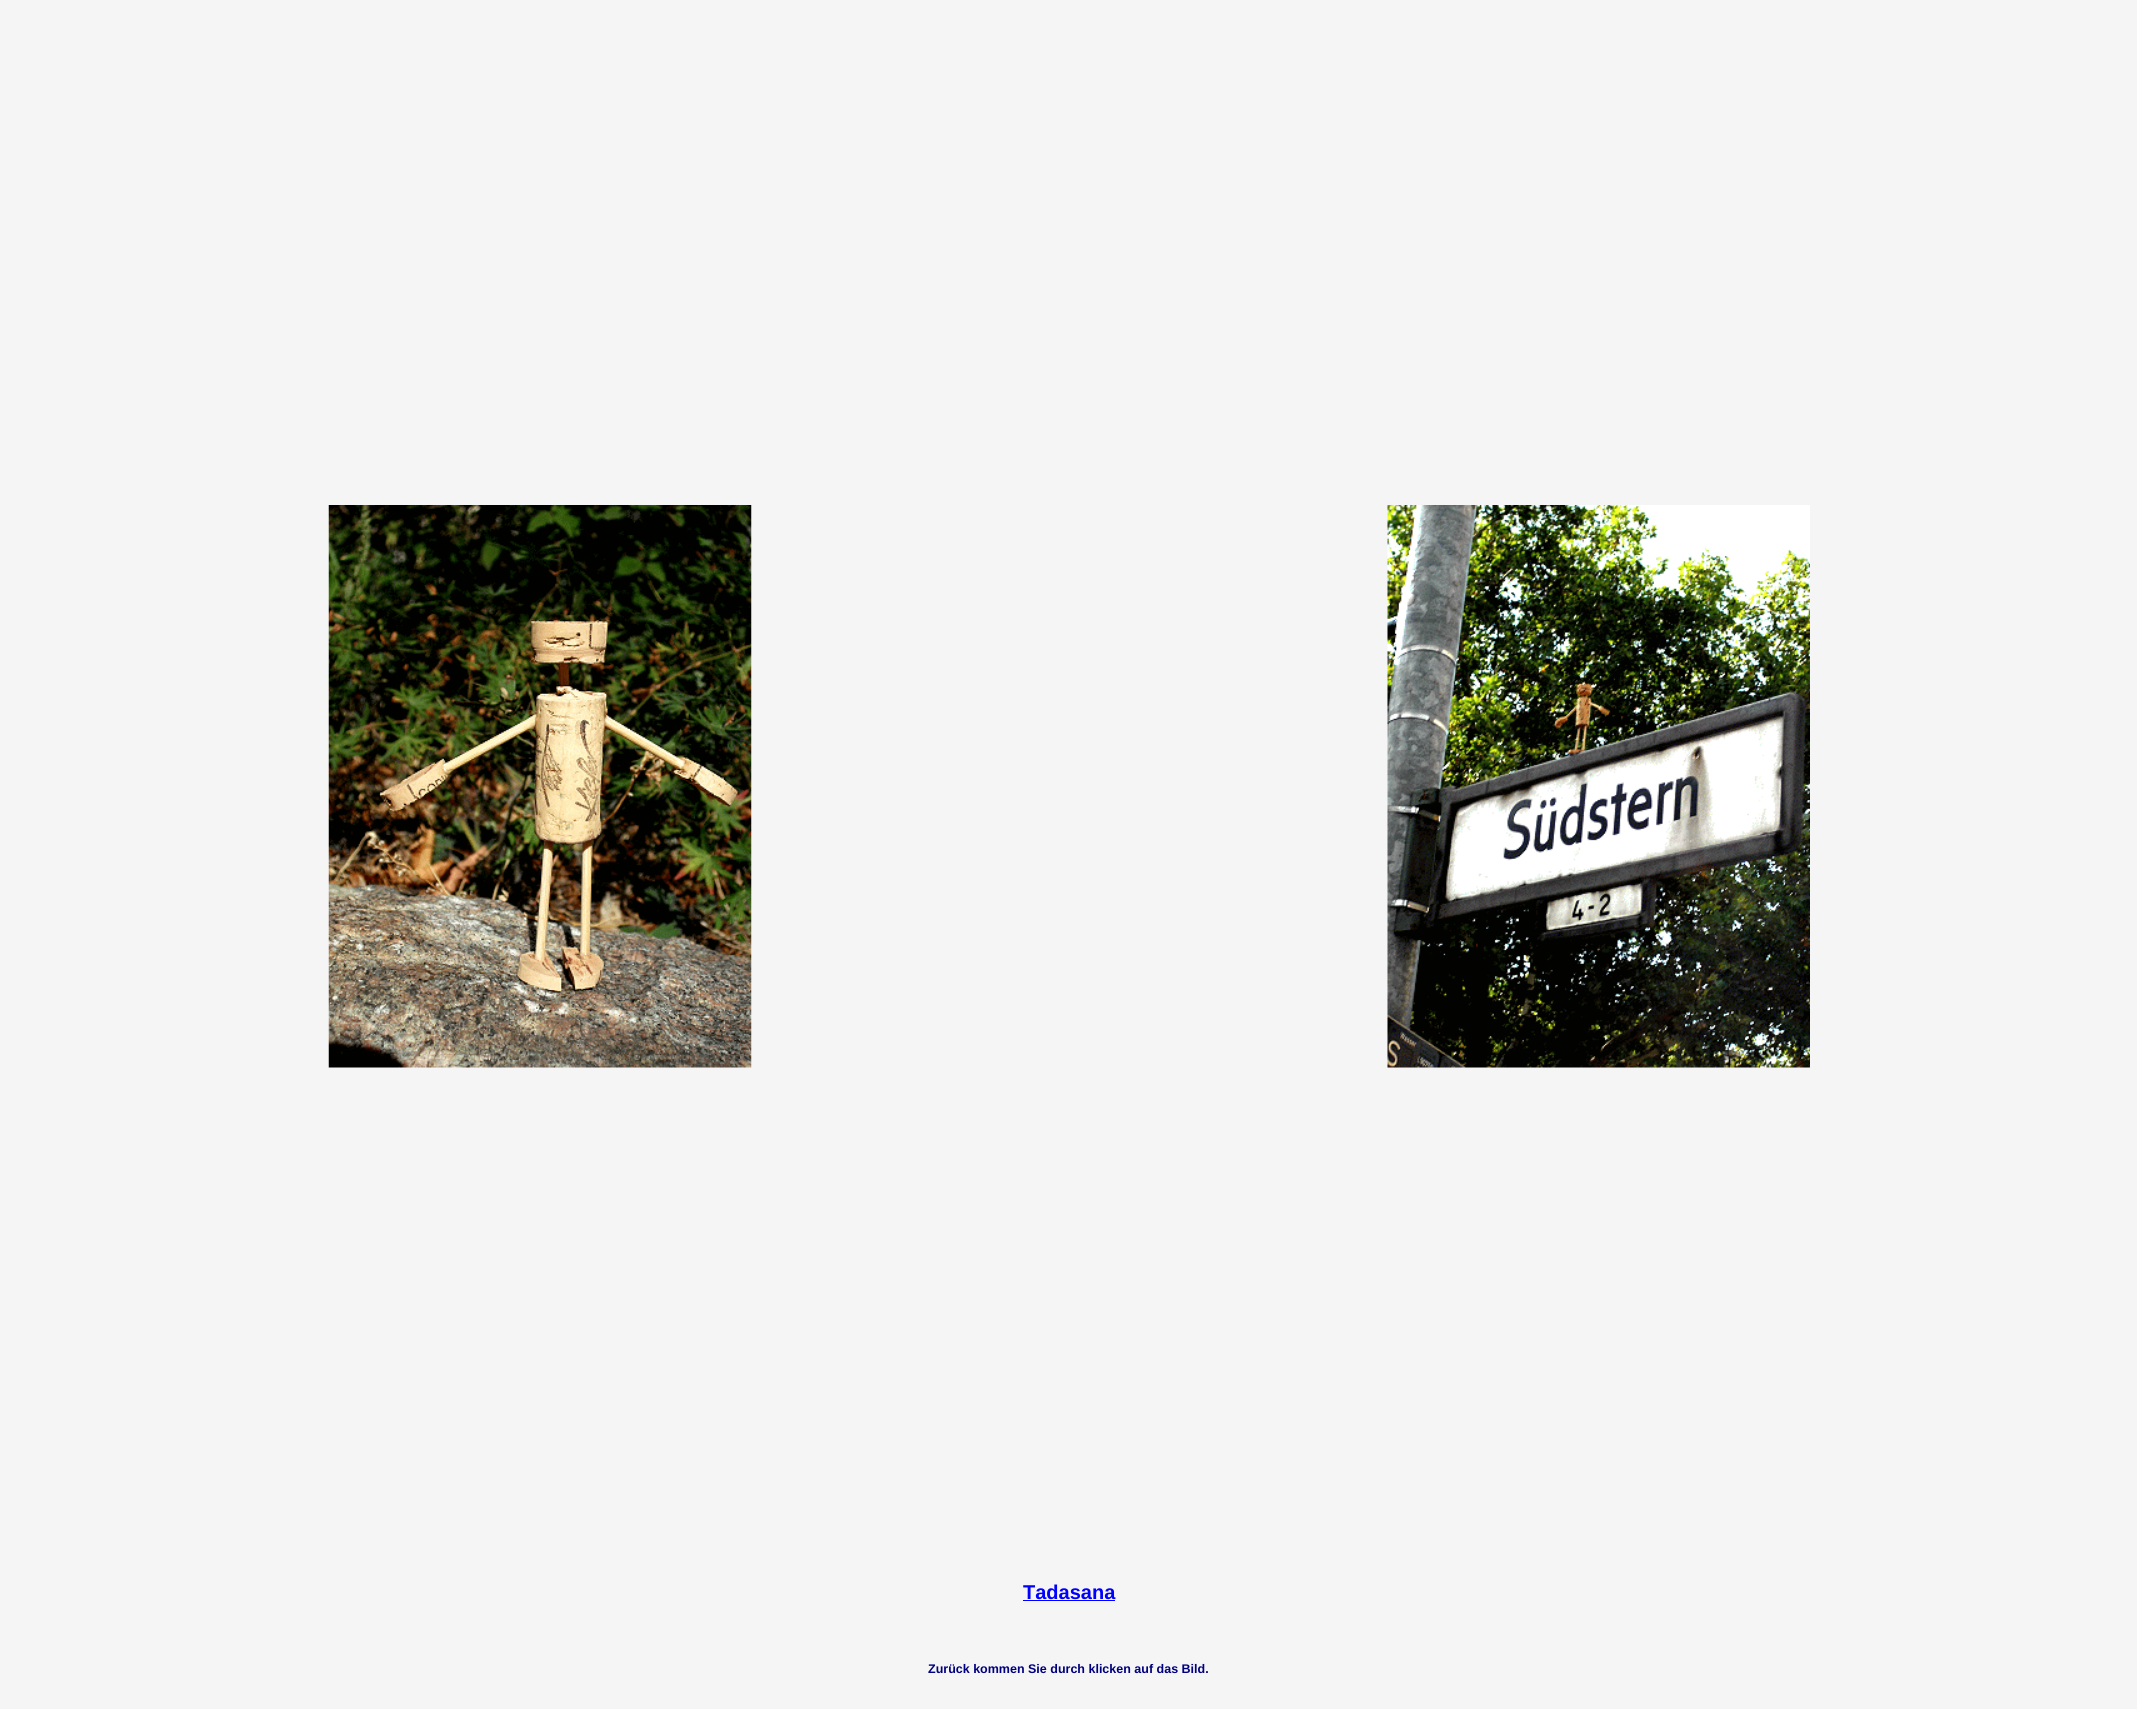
#include <cairo.h>
#include <math.h>
#include <stddef.h>

typedef struct { const char *family; double size; int italic, bold; unsigned color; } style_t;
static cairo_t *ctx;

static void ink(unsigned color) {
    cairo_set_source_rgb(ctx, (color >> 16) / 255.0, (color >> 8 & 255) / 255.0, (color & 255) / 255.0);
}

static void write(double x, double y, const char *s, const style_t *st) {
    cairo_select_font_face(ctx, st->family, st->italic ? CAIRO_FONT_SLANT_ITALIC : CAIRO_FONT_SLANT_NORMAL,
        st->bold ? CAIRO_FONT_WEIGHT_BOLD : CAIRO_FONT_WEIGHT_NORMAL);
    cairo_set_font_size(ctx, st->size);
    ink(st->color);
    cairo_move_to(ctx, x, y);
    cairo_show_text(ctx, s);
}

static void block(double x, double y, double w, double h, unsigned color) {
    ink(color);
    cairo_rectangle(ctx, x, y, w, h);
    cairo_fill(ctx);
}

static void paste(const char *path, double x, double y, double w, double h) {
    cairo_surface_t *image = cairo_image_surface_create_from_png(path);
    cairo_save(ctx);
    cairo_set_source_surface(ctx, image, x, y);
    cairo_rectangle(ctx, x, y, w, h);
    cairo_fill(ctx);
    cairo_restore(ctx);
    cairo_surface_destroy(image);
}

static const style_t s1 = {"Liberation Sans", 20, 0, 1, 0x0000ff};
static const style_t s2 = {"Liberation Sans", 12.5, 0, 1, 0x000080};

int main(void) {
    cairo_surface_t *surface = cairo_image_surface_create(CAIRO_FORMAT_RGB24, 2137, 1709);
    ctx = cairo_create(surface);
    cairo_font_options_t *options = cairo_font_options_create();
    cairo_font_options_set_hint_metrics(options, CAIRO_HINT_METRICS_OFF);
    cairo_font_options_set_hint_style(options, CAIRO_HINT_STYLE_NONE);
    cairo_set_font_options(ctx, options);
    cairo_set_miter_limit(ctx, 4);
    ink(0xf5f5f5);
    cairo_paint(ctx);
    paste("pic1.png", 328, 505, 424, 563);
    paste("pic2.png", 1387, 505, 423, 563);
    write(1023, 1599, "Tadasana", &s1);
    block(1023, 1600, 92, 1, 0x0000ff);
    write(928, 1673, "Zurück kommen Sie durch klicken auf das Bild.", &s2);
    cairo_surface_write_to_png(surface, "screenshot.png");
    cairo_font_options_destroy(options);
    cairo_destroy(ctx);
    cairo_surface_destroy(surface);
    return 0;
}
